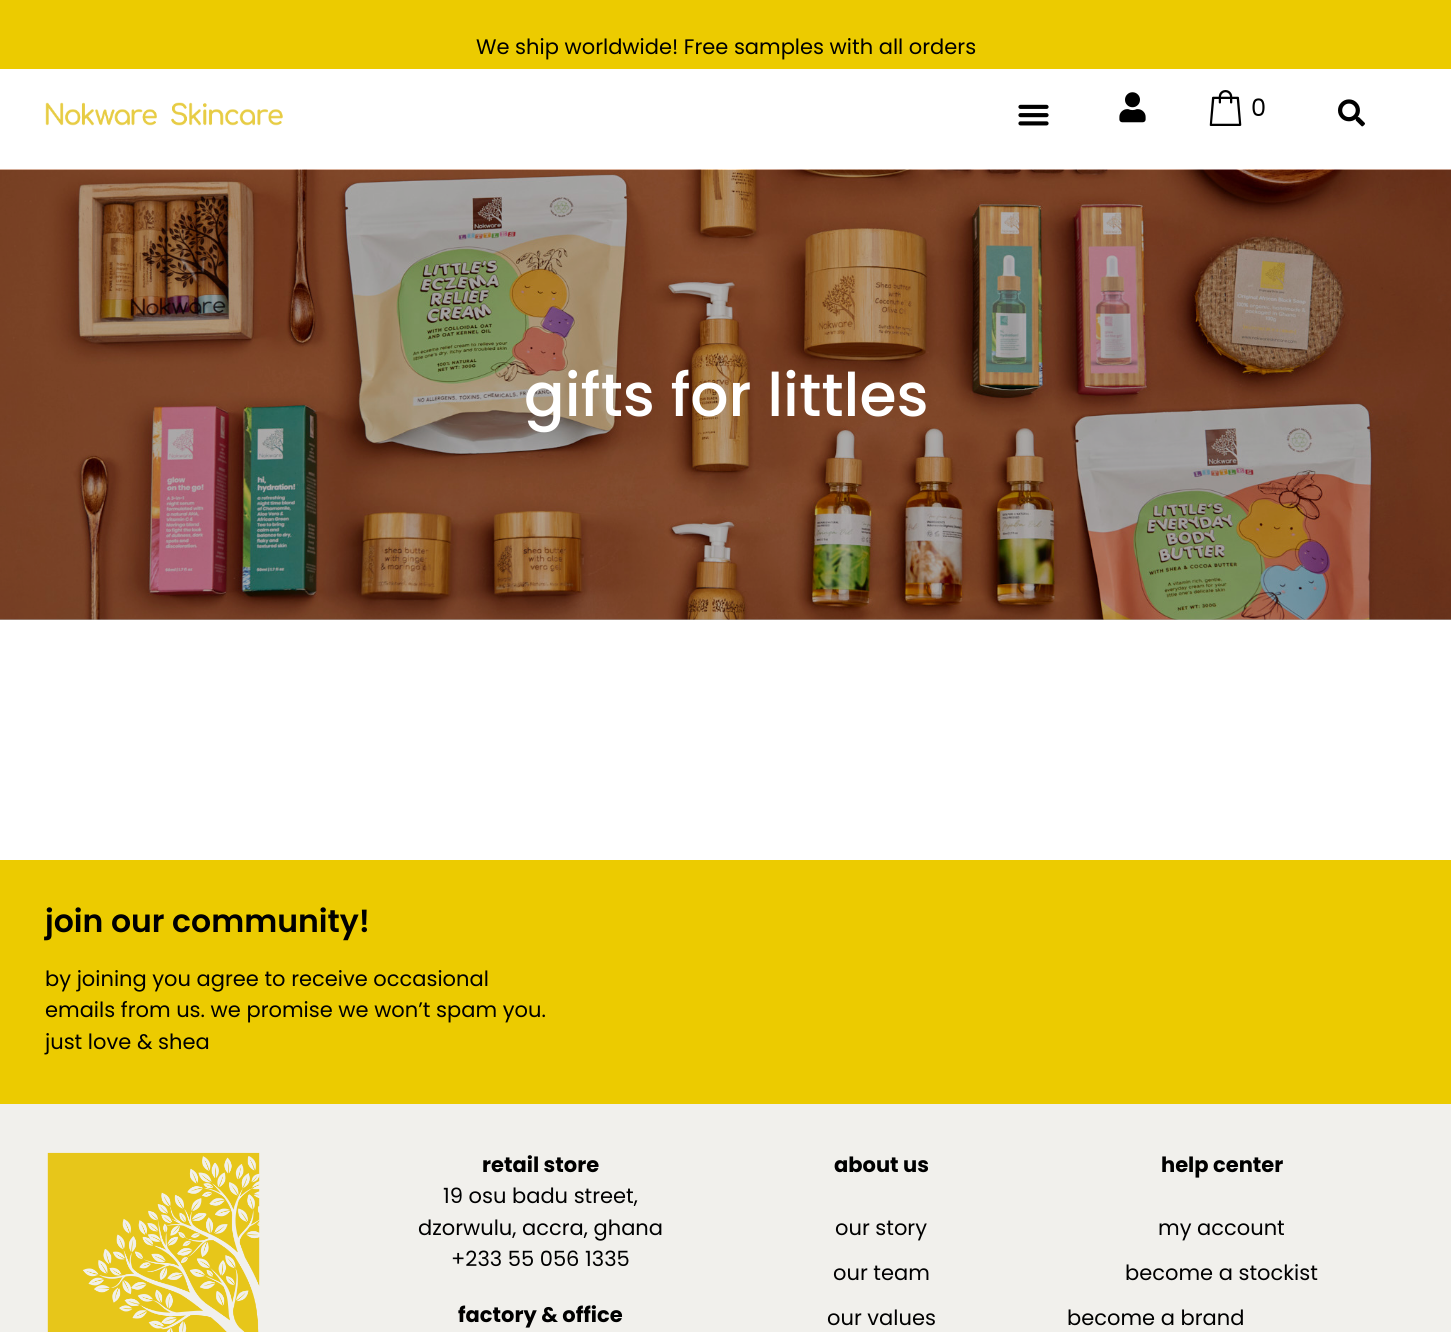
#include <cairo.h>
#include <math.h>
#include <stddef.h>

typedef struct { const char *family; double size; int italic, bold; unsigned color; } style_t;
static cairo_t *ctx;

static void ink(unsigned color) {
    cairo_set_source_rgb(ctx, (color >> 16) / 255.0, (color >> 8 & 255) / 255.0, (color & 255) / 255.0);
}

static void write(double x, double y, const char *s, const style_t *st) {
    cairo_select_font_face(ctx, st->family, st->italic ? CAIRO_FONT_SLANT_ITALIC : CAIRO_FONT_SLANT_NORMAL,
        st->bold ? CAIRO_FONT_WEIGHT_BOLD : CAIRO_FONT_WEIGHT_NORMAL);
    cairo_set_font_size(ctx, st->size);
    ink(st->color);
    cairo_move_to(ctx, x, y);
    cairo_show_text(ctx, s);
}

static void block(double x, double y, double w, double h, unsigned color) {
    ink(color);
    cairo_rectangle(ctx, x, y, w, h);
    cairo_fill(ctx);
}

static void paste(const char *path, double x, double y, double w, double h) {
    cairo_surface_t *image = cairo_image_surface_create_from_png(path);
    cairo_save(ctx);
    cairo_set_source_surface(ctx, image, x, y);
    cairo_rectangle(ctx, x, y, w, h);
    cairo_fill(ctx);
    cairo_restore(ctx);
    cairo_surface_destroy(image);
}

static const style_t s1 = {"Poppins", 21, 0, 0, 0x000000};
static const style_t s2 = {"Poppins", 24, 0, 0, 0x000000};
static const style_t s3 = {"Poppins Medium", 60, 0, 0, 0xffffff};
static const style_t s4 = {"Poppins SemiBold", 31.5, 0, 0, 0x000000};
static const style_t s5 = {"Poppins", 21, 0, 1, 0x000000};

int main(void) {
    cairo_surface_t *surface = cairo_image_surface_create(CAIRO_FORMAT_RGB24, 1451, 1332);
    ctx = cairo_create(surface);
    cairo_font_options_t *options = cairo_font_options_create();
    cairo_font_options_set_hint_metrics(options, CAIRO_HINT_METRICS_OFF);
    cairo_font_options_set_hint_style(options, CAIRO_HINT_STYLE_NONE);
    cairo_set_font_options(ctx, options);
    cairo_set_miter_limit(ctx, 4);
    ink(0xffffff);
    cairo_paint(ctx);
    block(0, 619, 1451, 1, 0xb3b3b3);
    block(0, 0, 1451, 69, 0xeccb00);
    write(476, 54, "We ship worldwide! Free samples with all orders", &s1);
    paste("pic1.png", 45, 102, 238, 24);
    paste("pic2.png", 1018, 104, 31, 22);
    paste("pic3.png", 1119, 92, 27, 31);
    paste("pic4.png", 1209, 90, 33, 36);
    write(1251, 116, "0", &s2);
    paste("pic5.png", 1338, 99, 27, 28);
    paste("pic6.png", 0, 169, 1451, 451);
    write(524, 416, "gifts for littles", &s3);
    block(0, 860, 1451, 244, 0xeccb00);
    write(45, 932, "join our community!", &s4);
    write(45, 986, "by joining you agree to receive occasional", &s1);
    write(45, 1017, "emails from us. we promise we won’t spam you.", &s1);
    write(45, 1049, "just love & shea", &s1);
    block(0, 1104, 1451, 228, 0xf1f0ec);
    paste("pic7.png", 47, 1152, 213, 180);
    write(482, 1172, "retail store", &s5);
    write(443, 1203, "19 osu badu street,", &s1);
    write(418, 1235, "dzorwulu, accra, ghana", &s1);
    write(451, 1266, "+233 55 056 1335", &s1);
    write(458, 1322, "factory & office", &s5);
    write(834, 1172, "about us", &s5);
    write(835, 1235, "our story", &s1);
    write(833, 1280, "our team", &s1);
    write(827, 1325, "our values", &s1);
    write(1161, 1172, "help center", &s5);
    write(1158, 1235, "my account", &s1);
    write(1125, 1280, "become a stockist", &s1);
    write(1067, 1325, "become a brand", &s1);
    cairo_surface_write_to_png(surface, "screenshot.png");
    cairo_font_options_destroy(options);
    cairo_destroy(ctx);
    cairo_surface_destroy(surface);
    return 0;
}
